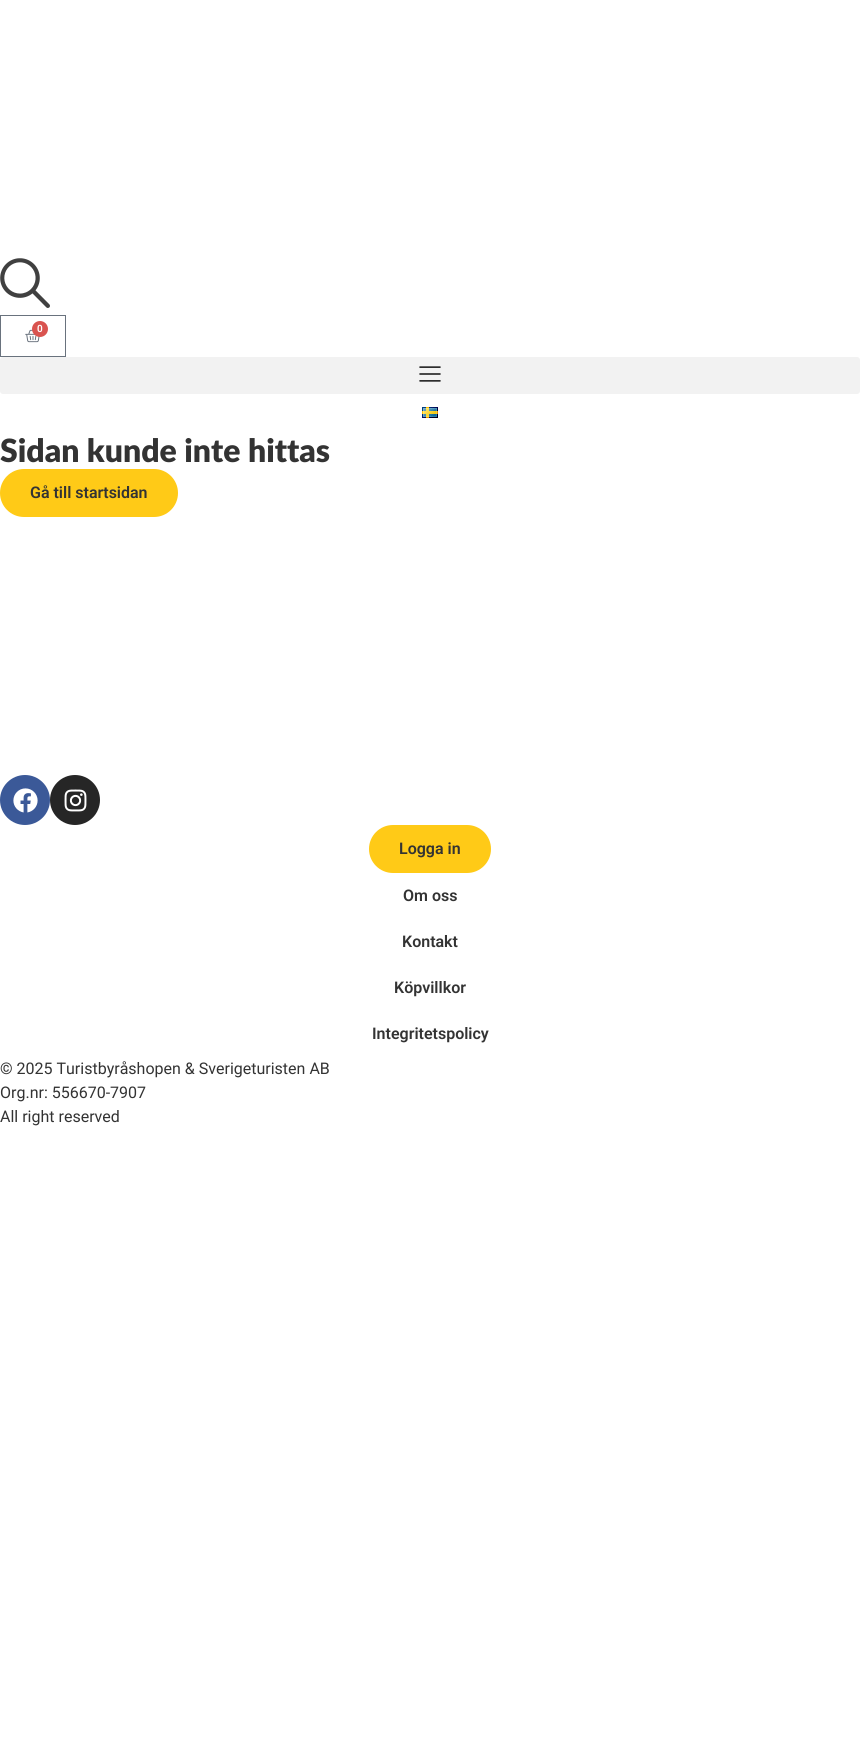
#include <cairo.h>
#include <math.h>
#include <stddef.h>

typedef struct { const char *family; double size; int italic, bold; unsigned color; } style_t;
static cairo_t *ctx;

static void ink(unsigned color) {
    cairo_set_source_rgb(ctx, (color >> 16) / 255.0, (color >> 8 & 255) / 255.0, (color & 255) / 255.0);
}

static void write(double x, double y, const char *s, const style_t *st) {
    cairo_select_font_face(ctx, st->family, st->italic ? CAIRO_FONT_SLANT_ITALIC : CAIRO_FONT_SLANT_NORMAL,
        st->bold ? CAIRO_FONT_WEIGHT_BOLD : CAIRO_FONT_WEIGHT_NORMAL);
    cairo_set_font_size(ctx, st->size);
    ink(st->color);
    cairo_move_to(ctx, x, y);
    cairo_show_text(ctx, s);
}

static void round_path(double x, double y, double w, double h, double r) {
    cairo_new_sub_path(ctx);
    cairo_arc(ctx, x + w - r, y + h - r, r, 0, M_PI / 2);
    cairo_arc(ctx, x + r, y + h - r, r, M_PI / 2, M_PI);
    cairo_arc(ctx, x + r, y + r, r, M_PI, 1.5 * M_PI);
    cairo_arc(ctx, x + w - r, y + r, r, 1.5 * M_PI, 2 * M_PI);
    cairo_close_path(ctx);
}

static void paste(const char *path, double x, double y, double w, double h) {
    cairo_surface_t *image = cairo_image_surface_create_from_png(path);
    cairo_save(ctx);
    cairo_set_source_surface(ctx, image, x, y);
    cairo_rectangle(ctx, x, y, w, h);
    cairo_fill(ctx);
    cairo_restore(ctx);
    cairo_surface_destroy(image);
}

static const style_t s1 = {"Roboto SemiBold", 10, 0, 0, 0xffffff};
static const style_t s2 = {"Lato ExtraBold", 32, 0, 0, 0x333333};
static const style_t s3 = {"Roboto SemiBold", 16, 0, 0, 0x333333};
static const style_t s4 = {"Roboto", 16, 0, 0, 0x333333};

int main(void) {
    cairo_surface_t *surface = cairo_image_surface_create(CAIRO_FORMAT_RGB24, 860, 1763);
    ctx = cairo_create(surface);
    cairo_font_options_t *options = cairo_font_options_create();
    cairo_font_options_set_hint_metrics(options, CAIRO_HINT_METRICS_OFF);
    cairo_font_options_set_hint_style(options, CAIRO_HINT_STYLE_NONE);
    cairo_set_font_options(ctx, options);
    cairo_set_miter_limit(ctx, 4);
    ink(0xffffff);
    cairo_paint(ctx);
    paste("pic1.png", 0, 258, 50, 50);
    cairo_rectangle(ctx, 0.5, 315.5, 65, 41);
    ink(0x69727d);
    cairo_set_line_width(ctx, 1);
    cairo_stroke(ctx);
    paste("pic2.png", 25, 329, 15, 14);
    ink(0xd9534f);
    cairo_arc(ctx, 40, 329, 8, 0, 2 * M_PI);
    cairo_fill(ctx);
    write(37, 332, "0", &s1);
    ink(0xf2f2f2);
    round_path(0, 357, 860, 37, 3);
    cairo_fill(ctx);
    paste("pic3.png", 419, 366, 22, 16);
    paste("pic4.png", 422, 407, 16, 11);
    write(0, 462, "Sidan kunde inte hittas", &s2);
    ink(0xffca17);
    round_path(0, 469, 178, 48, 24);
    cairo_fill(ctx);
    write(30, 498, "Gå till startsidan", &s3);
    ink(0x3b5998);
    cairo_new_path(ctx);
    cairo_arc(ctx, 25, 800, 25, 0, 2 * M_PI);
    cairo_fill(ctx);
    paste("pic5.png", 13, 788, 25, 25);
    ink(0x262626);
    cairo_arc(ctx, 75, 800, 25, 0, 2 * M_PI);
    cairo_fill(ctx);
    paste("pic6.png", 64, 789, 23, 23);
    ink(0xffca17);
    round_path(369, 825, 122, 48, 24);
    cairo_fill(ctx);
    write(399, 854, "Logga in", &s3);
    write(403, 901, "Om oss", &s3);
    write(402, 947, "Kontakt", &s3);
    write(394, 993, "Köpvillkor", &s3);
    write(372, 1039, "Integritetspolicy", &s3);
    write(0, 1074, "© 2025 Turistbyråshopen & Sverigeturisten AB", &s4);
    write(0, 1098, "Org.nr: 556670-7907", &s4);
    write(0, 1122, "All right reserved", &s4);
    cairo_surface_write_to_png(surface, "screenshot.png");
    cairo_font_options_destroy(options);
    cairo_destroy(ctx);
    cairo_surface_destroy(surface);
    return 0;
}
